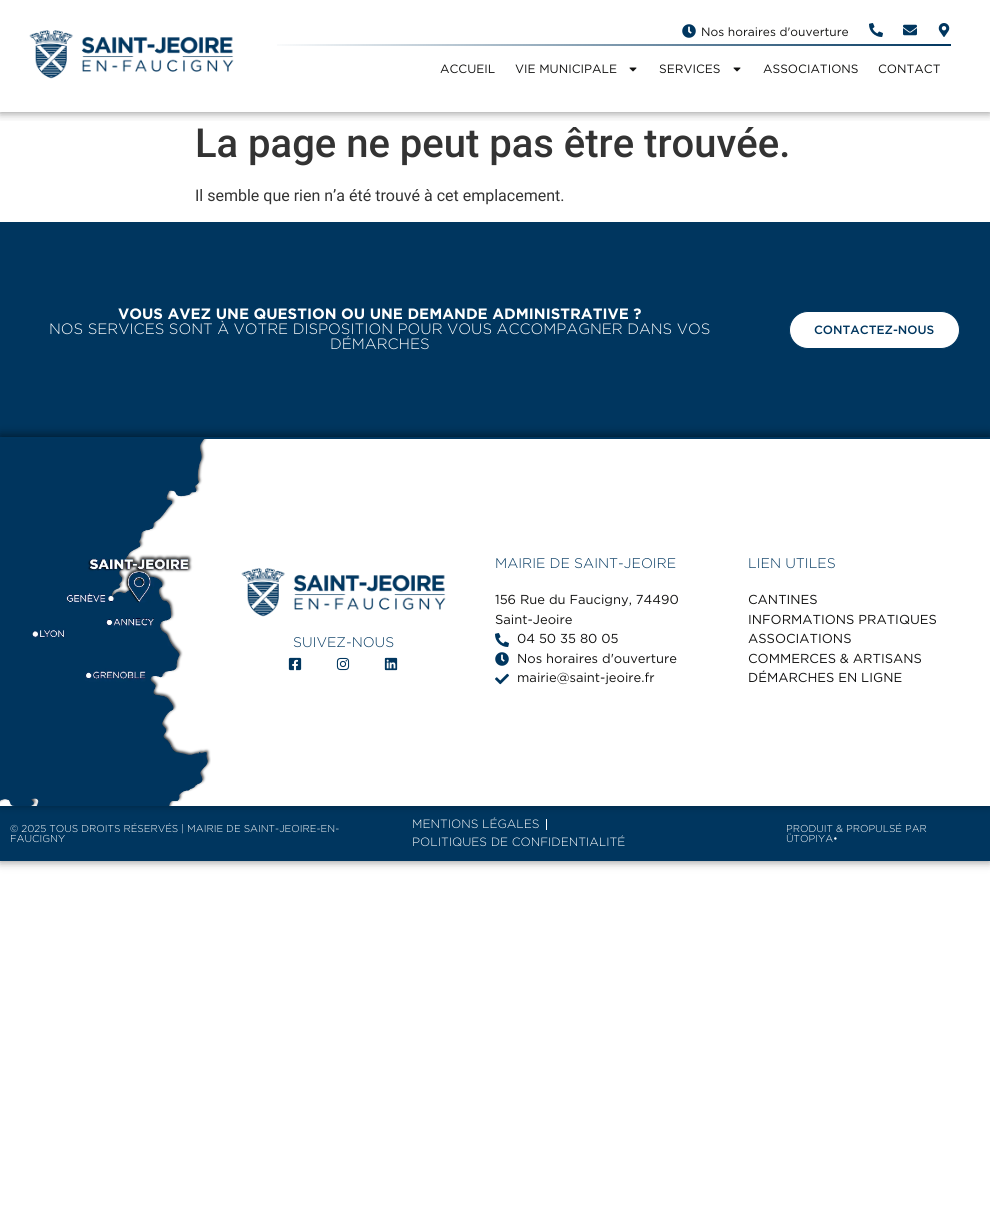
#include <cairo.h>
#include <math.h>
#include <stddef.h>

typedef struct { const char *family; double size; int italic, bold; unsigned color; } style_t;
static cairo_t *ctx;

static void ink(unsigned color) {
    cairo_set_source_rgb(ctx, (color >> 16) / 255.0, (color >> 8 & 255) / 255.0, (color & 255) / 255.0);
}

static void write(double x, double y, const char *s, const style_t *st) {
    cairo_select_font_face(ctx, st->family, st->italic ? CAIRO_FONT_SLANT_ITALIC : CAIRO_FONT_SLANT_NORMAL,
        st->bold ? CAIRO_FONT_WEIGHT_BOLD : CAIRO_FONT_WEIGHT_NORMAL);
    cairo_set_font_size(ctx, st->size);
    ink(st->color);
    cairo_move_to(ctx, x, y);
    cairo_show_text(ctx, s);
}

static void block(double x, double y, double w, double h, unsigned color) {
    ink(color);
    cairo_rectangle(ctx, x, y, w, h);
    cairo_fill(ctx);
}

static void round_path(double x, double y, double w, double h, double r) {
    cairo_new_sub_path(ctx);
    cairo_arc(ctx, x + w - r, y + h - r, r, 0, M_PI / 2);
    cairo_arc(ctx, x + r, y + h - r, r, M_PI / 2, M_PI);
    cairo_arc(ctx, x + r, y + r, r, M_PI, 1.5 * M_PI);
    cairo_arc(ctx, x + w - r, y + r, r, 1.5 * M_PI, 2 * M_PI);
    cairo_close_path(ctx);
}

static void blur_box(double x, double y, double w, double h, double r, double blur, double alpha) {
    cairo_push_group_with_content(ctx, CAIRO_CONTENT_ALPHA);
    cairo_set_operator(ctx, CAIRO_OPERATOR_SOURCE);
    for (int i = 15; i >= -15 && fmin(w, h) + blur * i / 3 > 0; i -= 2) {
        double e = blur * i / 6;
        cairo_set_source_rgba(ctx, 0, 0, 0, alpha * erfc((i - 1) / 8.5) / 2);
        round_path(x - e, y - e, w + 2 * e, h + 2 * e, fmax(0, fmin(r + e + blur * .6, fmin(w, h) / 2 + e)));
        cairo_fill(ctx);
    }
    cairo_pattern_t *soft = cairo_pop_group(ctx);
    cairo_mask(ctx, soft);
    cairo_pattern_destroy(soft);
}

static void paste(const char *path, double x, double y, double w, double h) {
    cairo_surface_t *image = cairo_image_surface_create_from_png(path);
    cairo_save(ctx);
    cairo_set_source_surface(ctx, image, x, y);
    cairo_rectangle(ctx, x, y, w, h);
    cairo_fill(ctx);
    cairo_restore(ctx);
    cairo_surface_destroy(image);
}

static const style_t s1 = {"Gotham", 12, 0, 0, 0x111110};
static const style_t s2 = {"Roboto Medium", 40, 0, 0, 0x333333};
static const style_t s3 = {"Roboto", 16, 0, 0, 0x333333};
static const style_t s4 = {"Gotham", 15, 0, 1, 0xffffff};
static const style_t s5 = {"Gotham Light", 15, 0, 0, 0xffffff};
static const style_t s6 = {"Gotham Medium", 12, 0, 0, 0x00365f};
static const style_t s7 = {"Gotham Light", 14, 0, 0, 0x00365f};
static const style_t s8 = {"Gotham", 13, 0, 0, 0x111110};
static const style_t s9 = {"Gotham Light", 10, 0, 0, 0xffffff};
static const style_t s10 = {"Gotham Light", 12, 0, 0, 0xffffff};

int main(void) {
    cairo_surface_t *surface = cairo_image_surface_create(CAIRO_FORMAT_RGB24, 990, 1230);
    ctx = cairo_create(surface);
    cairo_font_options_t *options = cairo_font_options_create();
    cairo_font_options_set_hint_metrics(options, CAIRO_HINT_METRICS_OFF);
    cairo_font_options_set_hint_style(options, CAIRO_HINT_STYLE_NONE);
    cairo_set_font_options(ctx, options);
    cairo_set_miter_limit(ctx, 4);
    ink(0xffffff);
    cairo_paint(ctx);
    cairo_save(ctx);
    cairo_rectangle(ctx, 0, 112, 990, 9);
    cairo_clip(ctx);
    ink(0x000000);
    blur_box(0, 0, 990, 112, 0, 5, 0.5);
    cairo_restore(ctx);
    paste("pic1.png", 29, 30, 205, 49);
    paste("pic2.png", 682, 24, 14, 14);
    write(701, 36, "Nos horaires d'ouverture", &s1);
    paste("pic3.png", 869, 23, 14, 14);
    paste("pic4.png", 903, 24, 14, 12);
    paste("pic5.png", 938, 23, 12, 14);
    paste("pic6.png", 277, 44, 674, 2);
    write(440, 73, "ACCUEIL", &s1);
    write(515, 73, "VIE MUNICIPALE", &s1);
    paste("pic7.png", 629, 67, 8, 5);
    write(659, 73, "SERVICES", &s1);
    paste("pic7.png", 733, 67, 8, 5);
    write(763, 73, "ASSOCIATIONS", &s1);
    write(878, 73, "CONTACT", &s1);
    write(195, 157, "La page ne peut pas être trouvée.", &s2);
    write(195, 201, "Il semble que rien n’a été trouvé à cet emplacement.", &s3);
    block(0, 222, 990, 215, 0x00365f);
    write(118, 319, "VOUS AVEZ UNE QUESTION OU UNE DEMANDE ADMINISTRATIVE ?", &s4);
    write(49, 334, "NOS SERVICES SONT À VOTRE DISPOSITION POUR VOUS ACCOMPAGNER DANS VOS", &s5);
    write(330, 349, "DÉMARCHES", &s5);
    round_path(789.5, 311.5, 170, 37, 18.5);
    cairo_fill_preserve(ctx);
    ink(0x00365f);
    cairo_set_line_width(ctx, 1);
    cairo_stroke(ctx);
    write(814, 334, "CONTACTEZ-NOUS", &s6);
    ink(0x000000);
    blur_box(0, 806, 990, 55, 0, 5, 0.5);
    block(0, 806, 990, 55, 0x00365f);
    block(546, 819, 1, 11, 0xffffff);
    ink(0x000000);
    blur_box(0, 435, 990, 369, 0, 5, 0.5);
    block(0, 439, 990, 367, 0xffffff);
    paste("pic8.png", 0, 439, 211, 367);
    block(0, 437, 990, 2, 0x00365f);
    paste("pic1.png", 241, 568, 205, 49);
    write(293, 647, "SUIVEZ-NOUS", &s7);
    paste("pic9.png", 288, 657, 14, 14);
    paste("pic10.png", 336, 657, 14, 14);
    paste("pic11.png", 384, 657, 14, 14);
    write(495, 568, "MAIRIE DE SAINT-JEOIRE", &s7);
    write(495, 604, "156 Rue du Faucigny, 74490", &s8);
    write(495, 624, "Saint-Jeoire", &s8);
    paste("pic3.png", 495, 633, 14, 14);
    write(517, 643, "04 50 35 80 05", &s8);
    paste("pic2.png", 495, 652, 14, 14);
    write(517, 663, "Nos horaires d'ouverture", &s8);
    paste("pic12.png", 495, 673, 14, 12);
    write(517, 682, "mairie@saint-jeoire.fr", &s8);
    write(748, 568, "LIEN UTILES", &s7);
    write(748, 604, "CANTINES", &s8);
    write(748, 624, "INFORMATIONS PRATIQUES", &s8);
    write(748, 643, "ASSOCIATIONS", &s8);
    write(748, 663, "COMMERCES & ARTISANS", &s8);
    write(748, 682, "DÉMARCHES EN LIGNE", &s8);
    write(10, 832, "© 2025 TOUS DROITS RÉSERVÉS | MAIRIE DE SAINT-JEOIRE-EN-", &s9);
    write(10, 842, "FAUCIGNY", &s9);
    write(412, 828, "MENTIONS LÉGALES", &s10);
    write(412, 846, "POLITIQUES DE CONFIDENTIALITÉ", &s10);
    write(786, 832, "PRODUIT & PROPULSÉ PAR", &s9);
    write(786, 842, "ÜTOPIYA•", &s9);
    cairo_surface_write_to_png(surface, "screenshot.png");
    cairo_font_options_destroy(options);
    cairo_destroy(ctx);
    cairo_surface_destroy(surface);
    return 0;
}
